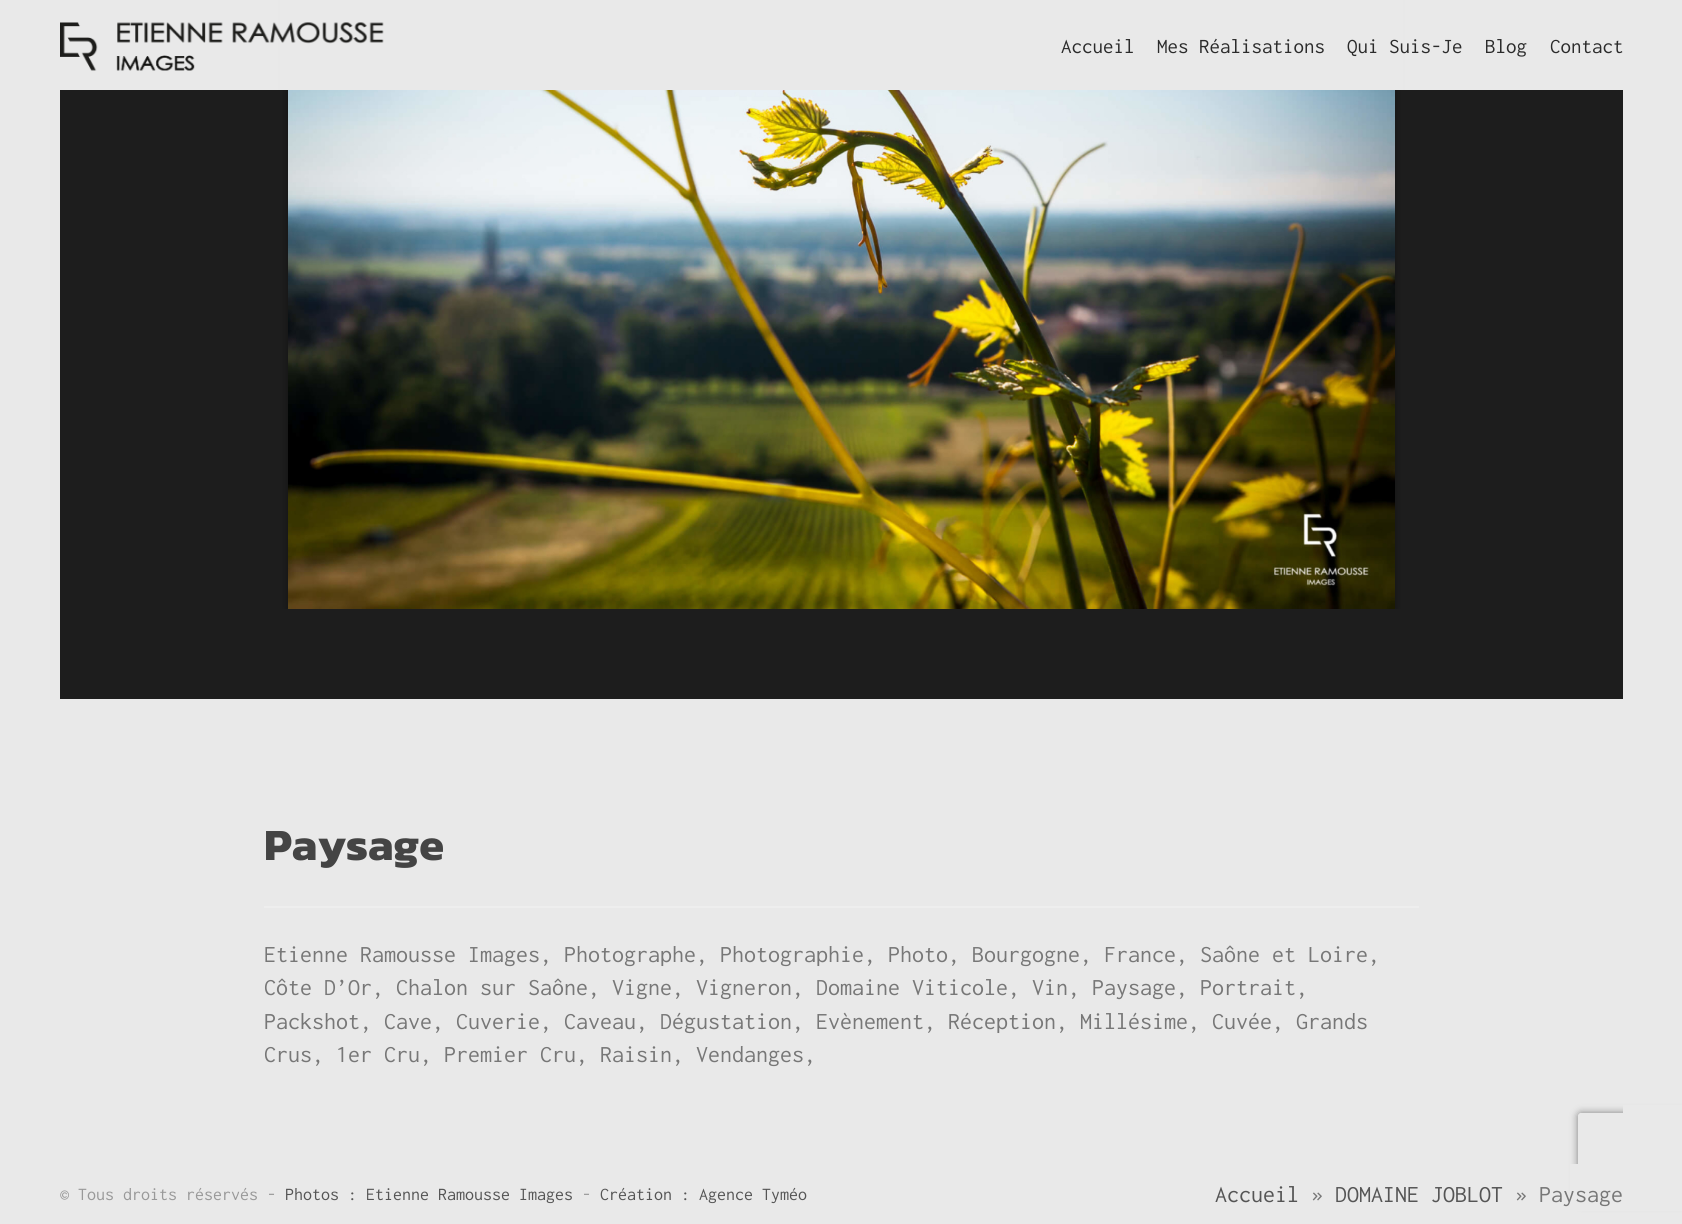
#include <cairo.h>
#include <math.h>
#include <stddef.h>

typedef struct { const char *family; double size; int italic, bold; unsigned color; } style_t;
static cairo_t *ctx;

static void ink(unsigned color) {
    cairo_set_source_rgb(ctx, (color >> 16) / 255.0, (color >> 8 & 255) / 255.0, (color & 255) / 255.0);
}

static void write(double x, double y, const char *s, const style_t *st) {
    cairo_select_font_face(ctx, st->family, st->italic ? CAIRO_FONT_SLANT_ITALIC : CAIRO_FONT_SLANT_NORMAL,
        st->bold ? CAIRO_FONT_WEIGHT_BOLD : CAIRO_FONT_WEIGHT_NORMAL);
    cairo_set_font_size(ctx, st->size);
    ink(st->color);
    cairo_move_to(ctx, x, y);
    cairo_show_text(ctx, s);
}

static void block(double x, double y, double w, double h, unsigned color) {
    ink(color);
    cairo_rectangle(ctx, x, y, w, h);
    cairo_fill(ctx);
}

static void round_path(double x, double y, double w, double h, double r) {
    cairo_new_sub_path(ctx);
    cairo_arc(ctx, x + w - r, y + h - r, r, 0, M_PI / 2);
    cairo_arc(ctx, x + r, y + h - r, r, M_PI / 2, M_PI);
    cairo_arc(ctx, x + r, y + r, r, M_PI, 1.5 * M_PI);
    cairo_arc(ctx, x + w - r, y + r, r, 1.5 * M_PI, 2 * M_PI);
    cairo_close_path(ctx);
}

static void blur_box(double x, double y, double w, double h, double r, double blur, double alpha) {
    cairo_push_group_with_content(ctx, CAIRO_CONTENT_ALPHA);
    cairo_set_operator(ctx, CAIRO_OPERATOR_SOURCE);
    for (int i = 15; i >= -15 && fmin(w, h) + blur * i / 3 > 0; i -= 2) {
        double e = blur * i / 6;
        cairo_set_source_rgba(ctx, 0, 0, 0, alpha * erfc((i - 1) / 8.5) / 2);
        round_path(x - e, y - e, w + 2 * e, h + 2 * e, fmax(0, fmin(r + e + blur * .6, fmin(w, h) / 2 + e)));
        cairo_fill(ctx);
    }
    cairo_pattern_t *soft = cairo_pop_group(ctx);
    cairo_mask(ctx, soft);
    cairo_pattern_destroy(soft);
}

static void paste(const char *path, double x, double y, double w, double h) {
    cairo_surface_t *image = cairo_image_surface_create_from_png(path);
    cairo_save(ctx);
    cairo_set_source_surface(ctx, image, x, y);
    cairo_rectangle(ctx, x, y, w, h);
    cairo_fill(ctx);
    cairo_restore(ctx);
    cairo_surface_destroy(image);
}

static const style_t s1 = {"Inconsolata", 21, 0, 0, 0x2b2b2b};
static const style_t s2 = {"Kanit", 45, 0, 1, 0x444444};
static const style_t s3 = {"Inconsolata", 24, 0, 0, 0x777777};
static const style_t s4 = {"Inconsolata", 18, 0, 0, 0x999999};
static const style_t s5 = {"Inconsolata", 18, 0, 0, 0x555555};
static const style_t s6 = {"Inconsolata", 24, 0, 0, 0x555555};

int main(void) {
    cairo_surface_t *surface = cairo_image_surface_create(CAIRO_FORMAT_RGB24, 1682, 1224);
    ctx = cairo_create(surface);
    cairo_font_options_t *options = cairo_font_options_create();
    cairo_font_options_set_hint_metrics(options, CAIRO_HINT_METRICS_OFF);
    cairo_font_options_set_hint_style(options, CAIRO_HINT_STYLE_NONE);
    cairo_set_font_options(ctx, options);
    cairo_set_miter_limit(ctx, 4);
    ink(0xe9e9e9);
    cairo_paint(ctx);
    block(60, 90, 1563, 609, 0x1d1d1d);
    cairo_save(ctx);
    cairo_rectangle(ctx, 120, 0, 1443, 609);
    cairo_clip(ctx);
    ink(0x000000);
    blur_box(288, -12, 1107, 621, 0, 4, 0.4);
    cairo_restore(ctx);
    block(280, 0, 1123, 90, 0xe9e9e9);
    paste("pic1.png", 60, 22, 324, 49);
    write(1061, 53, "Accueil", &s1);
    write(1157, 53, "Mes Réalisations", &s1);
    write(1347, 53, "Qui Suis-Je", &s1);
    write(1485, 53, "Blog", &s1);
    write(1550, 53, "Contact", &s1);
    paste("pic2.png", 288, 90, 1107, 519);
    write(264, 860, "Paysage", &s2);
    block(264, 906, 1155, 2, 0xeeeeee);
    write(264, 962, "Etienne Ramousse Images, Photographe, Photographie, Photo, Bourgogne, France, Saône et Loire,", &s3);
    write(264, 995, "Côte D’Or, Chalon sur Saône, Vigne, Vigneron, Domaine Viticole, Vin, Paysage, Portrait,", &s3);
    write(264, 1029, "Packshot, Cave, Cuverie, Caveau, Dégustation, Evènement, Réception, Millésime, Cuvée, Grands", &s3);
    write(264, 1062, "Crus, 1er Cru, Premier Cru, Raisin, Vendanges,", &s3);
    cairo_save(ctx);
    cairo_set_fill_rule(ctx, CAIRO_FILL_RULE_EVEN_ODD);
    cairo_new_path(ctx);
    cairo_move_to(ctx, 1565, 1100);
    cairo_line_to(ctx, 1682, 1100);
    cairo_line_to(ctx, 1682, 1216);
    cairo_line_to(ctx, 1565, 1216);
    cairo_close_path(ctx);
    cairo_move_to(ctx, 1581, 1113);
    cairo_line_to(ctx, 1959, 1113);
    cairo_curve_to(ctx, 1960.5, 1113, 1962, 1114.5, 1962, 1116);
    cairo_line_to(ctx, 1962, 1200);
    cairo_curve_to(ctx, 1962, 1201.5, 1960.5, 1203, 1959, 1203);
    cairo_line_to(ctx, 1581, 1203);
    cairo_curve_to(ctx, 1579.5, 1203, 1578, 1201.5, 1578, 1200);
    cairo_line_to(ctx, 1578, 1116);
    cairo_curve_to(ctx, 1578, 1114.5, 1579.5, 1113, 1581, 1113);
    cairo_close_path(ctx);
    cairo_clip(ctx);
    ink(0x808080);
    blur_box(1578, 1113, 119, 90, 3, 4, 1);
    cairo_restore(ctx);
    block(1570, 1164, 53, 47, 0xe9e9e9);
    write(60, 1200, "© Tous droits réservés -", &s4);
    write(285, 1200, "Photos : Etienne Ramousse Images", &s5);
    write(582, 1200, "-", &s4);
    write(600, 1200, "Création : Agence Tyméo", &s5);
    write(1215, 1202, "Accueil", &s6);
    write(1311, 1202, "»", &s3);
    write(1335, 1202, "DOMAINE JOBLOT", &s6);
    write(1515, 1202, "» Paysage", &s3);
    block(1623, 1105, 59, 106, 0xe9e9e9);
    cairo_surface_write_to_png(surface, "screenshot.png");
    cairo_font_options_destroy(options);
    cairo_destroy(ctx);
    cairo_surface_destroy(surface);
    return 0;
}
